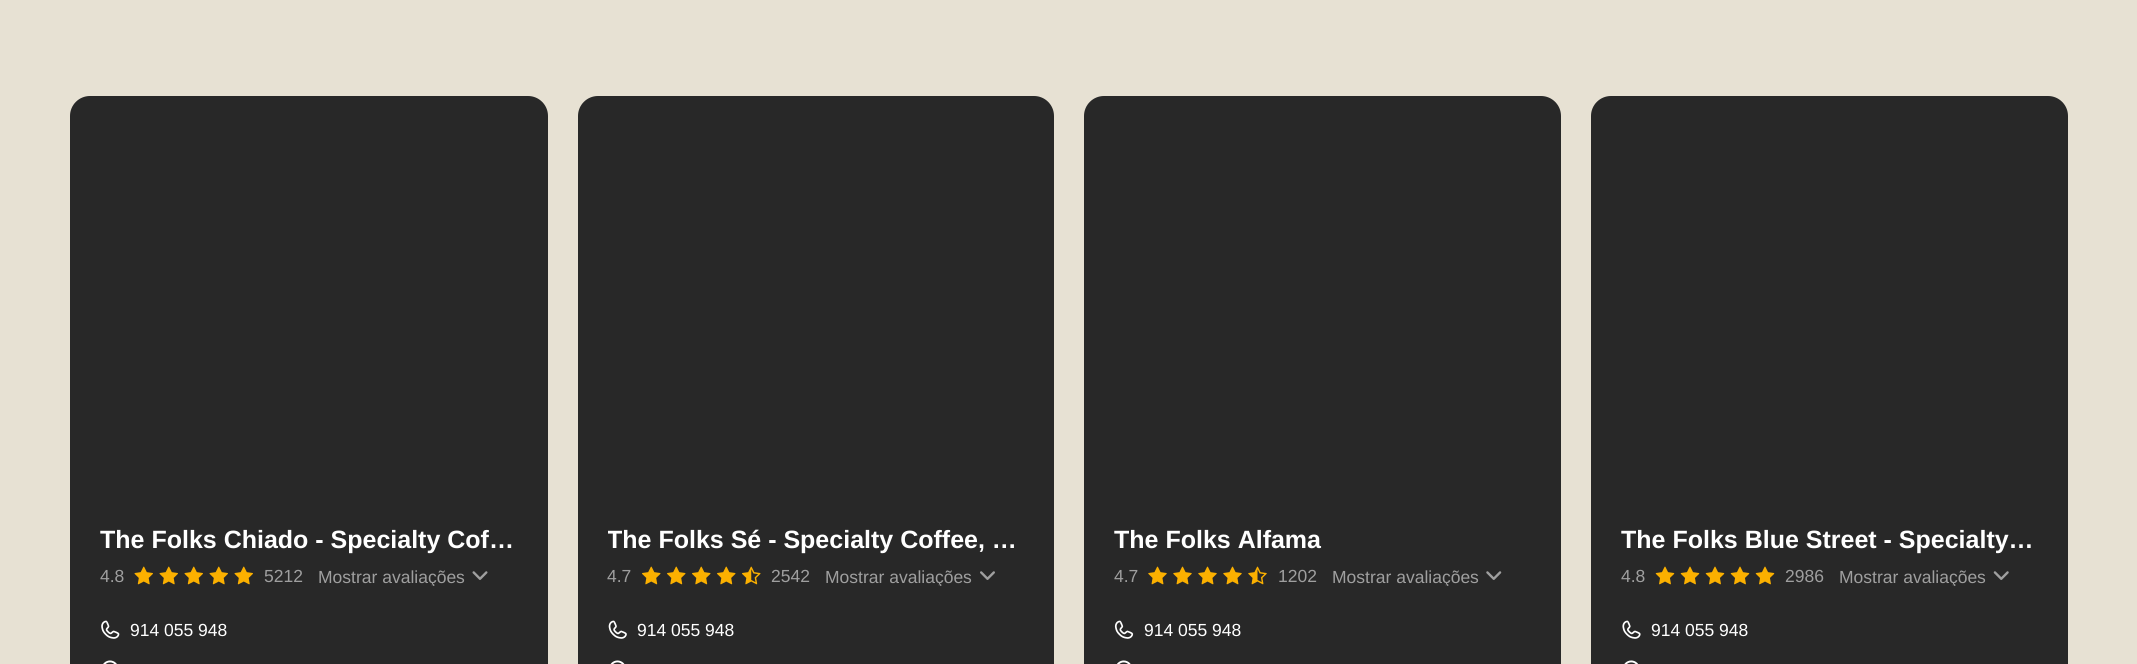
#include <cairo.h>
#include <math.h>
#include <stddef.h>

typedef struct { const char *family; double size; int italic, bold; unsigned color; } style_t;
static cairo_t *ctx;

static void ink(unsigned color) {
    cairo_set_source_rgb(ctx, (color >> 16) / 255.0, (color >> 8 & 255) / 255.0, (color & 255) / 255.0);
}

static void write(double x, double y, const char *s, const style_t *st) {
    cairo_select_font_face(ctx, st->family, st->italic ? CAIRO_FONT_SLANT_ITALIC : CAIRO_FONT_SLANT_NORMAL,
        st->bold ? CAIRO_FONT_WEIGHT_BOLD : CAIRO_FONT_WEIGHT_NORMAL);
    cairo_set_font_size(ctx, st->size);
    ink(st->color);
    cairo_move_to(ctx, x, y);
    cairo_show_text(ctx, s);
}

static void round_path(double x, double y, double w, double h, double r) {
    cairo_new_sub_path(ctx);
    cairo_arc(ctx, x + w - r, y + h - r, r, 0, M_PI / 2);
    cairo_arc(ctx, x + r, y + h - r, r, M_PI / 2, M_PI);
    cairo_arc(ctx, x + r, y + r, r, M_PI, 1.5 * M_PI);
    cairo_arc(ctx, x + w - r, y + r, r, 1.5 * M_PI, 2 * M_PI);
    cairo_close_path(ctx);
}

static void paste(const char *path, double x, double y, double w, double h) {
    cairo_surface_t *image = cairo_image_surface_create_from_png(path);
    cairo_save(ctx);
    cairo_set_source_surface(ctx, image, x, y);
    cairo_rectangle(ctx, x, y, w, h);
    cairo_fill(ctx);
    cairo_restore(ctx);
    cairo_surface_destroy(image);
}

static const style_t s1 = {"Liberation Sans", 25, 0, 1, 0xffffff};
static const style_t s2 = {"Liberation Sans", 17.5, 0, 0, 0x9f9f9f};
static const style_t s3 = {"Liberation Sans", 17.5, 0, 0, 0xffffff};

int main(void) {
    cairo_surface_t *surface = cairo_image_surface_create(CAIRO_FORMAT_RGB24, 2137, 664);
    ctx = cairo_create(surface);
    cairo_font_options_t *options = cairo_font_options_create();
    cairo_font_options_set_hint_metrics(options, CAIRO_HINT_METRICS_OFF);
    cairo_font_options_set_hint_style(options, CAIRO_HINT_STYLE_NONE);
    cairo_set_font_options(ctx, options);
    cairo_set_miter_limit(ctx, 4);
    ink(0xe7e1d3);
    cairo_paint(ctx);
    ink(0x282828);
    round_path(70, 96, 478, 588, 20);
    cairo_fill(ctx);
    write(100, 548, "The Folks Сhiado - Specialty Cof…", &s1);
    write(100, 582, "4.8", &s2);
    paste("pic1.png", 134, 566, 19, 19);
    paste("pic1.png", 159, 566, 19, 19);
    paste("pic1.png", 184, 566, 19, 19);
    paste("pic1.png", 209, 566, 19, 19);
    paste("pic1.png", 234, 566, 19, 19);
    write(264, 582, "5212", &s2);
    cairo_save(ctx);
    cairo_rectangle(ctx, 319, 566, 146, 20);
    cairo_clip(ctx);
    write(318, 583, "Mostrar avaliações", &s2);
    cairo_restore(ctx);
    paste("pic2.png", 472, 571, 16, 9);
    paste("pic3.png", 101, 620, 19, 19);
    write(130, 636, "914 055 948", &s3);
    paste("pic4.png", 103, 660, 14, 4);
    ink(0x282828);
    round_path(578, 96, 476, 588, 20);
    cairo_fill(ctx);
    cairo_save(ctx);
    cairo_rectangle(ctx, 608, 524, 416, 34);
    cairo_clip(ctx);
    write(607, 548, "The Folks Sé - Specialty Coffee, …", &s1);
    cairo_restore(ctx);
    write(607, 582, "4.7", &s2);
    paste("pic5.png", 642, 566, 19, 19);
    paste("pic5.png", 667, 566, 19, 19);
    paste("pic5.png", 692, 566, 19, 19);
    paste("pic5.png", 717, 566, 19, 19);
    paste("pic6.png", 742, 566, 19, 19);
    write(771, 582, "2542", &s2);
    cairo_save(ctx);
    cairo_rectangle(ctx, 825, 566, 148, 20);
    cairo_clip(ctx);
    write(825, 583, "Mostrar avaliações", &s2);
    cairo_restore(ctx);
    paste("pic7.png", 980, 571, 15, 9);
    paste("pic8.png", 608, 620, 19, 19);
    write(637, 636, "914 055 948", &s3);
    paste("pic9.png", 610, 660, 15, 4);
    ink(0x282828);
    round_path(1084, 96, 477, 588, 20);
    cairo_fill(ctx);
    write(1114, 548, "The Folks Alfama", &s1);
    write(1114, 582, "4.7", &s2);
    paste("pic10.png", 1148, 566, 19, 19);
    paste("pic10.png", 1173, 566, 19, 19);
    paste("pic10.png", 1198, 566, 19, 19);
    paste("pic10.png", 1223, 566, 19, 19);
    paste("pic11.png", 1248, 566, 19, 19);
    write(1278, 582, "1202", &s2);
    cairo_save(ctx);
    cairo_rectangle(ctx, 1333, 566, 146, 20);
    cairo_clip(ctx);
    write(1332, 583, "Mostrar avaliações", &s2);
    cairo_restore(ctx);
    paste("pic12.png", 1486, 571, 16, 9);
    paste("pic13.png", 1114, 620, 20, 19);
    write(1144, 636, "914 055 948", &s3);
    paste("pic14.png", 1117, 660, 14, 4);
    ink(0x282828);
    round_path(1591, 96, 477, 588, 20);
    cairo_fill(ctx);
    write(1621, 548, "The Folks Blue Street - Specialty…", &s1);
    write(1621, 582, "4.8", &s2);
    paste("pic15.png", 1655, 566, 20, 19);
    paste("pic15.png", 1680, 566, 20, 19);
    paste("pic15.png", 1705, 566, 20, 19);
    paste("pic15.png", 1730, 566, 20, 19);
    paste("pic15.png", 1755, 566, 20, 19);
    write(1785, 582, "2986", &s2);
    cairo_save(ctx);
    cairo_rectangle(ctx, 1839, 566, 147, 20);
    cairo_clip(ctx);
    write(1839, 583, "Mostrar avaliações", &s2);
    cairo_restore(ctx);
    paste("pic16.png", 1993, 571, 16, 9);
    paste("pic17.png", 1622, 620, 19, 19);
    write(1651, 636, "914 055 948", &s3);
    paste("pic18.png", 1624, 660, 14, 4);
    cairo_surface_write_to_png(surface, "screenshot.png");
    cairo_font_options_destroy(options);
    cairo_destroy(ctx);
    cairo_surface_destroy(surface);
    return 0;
}
